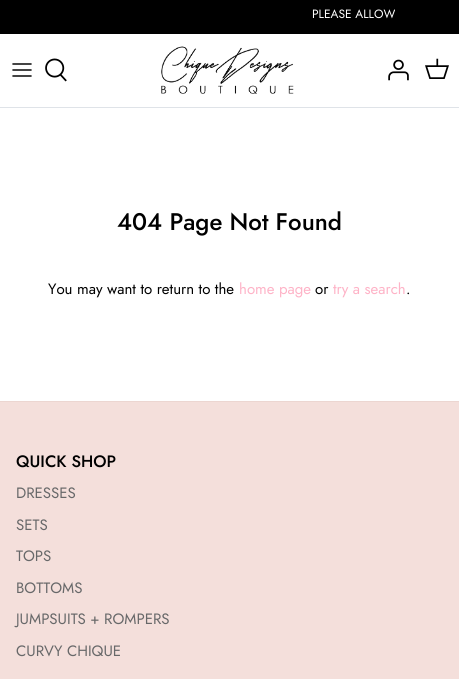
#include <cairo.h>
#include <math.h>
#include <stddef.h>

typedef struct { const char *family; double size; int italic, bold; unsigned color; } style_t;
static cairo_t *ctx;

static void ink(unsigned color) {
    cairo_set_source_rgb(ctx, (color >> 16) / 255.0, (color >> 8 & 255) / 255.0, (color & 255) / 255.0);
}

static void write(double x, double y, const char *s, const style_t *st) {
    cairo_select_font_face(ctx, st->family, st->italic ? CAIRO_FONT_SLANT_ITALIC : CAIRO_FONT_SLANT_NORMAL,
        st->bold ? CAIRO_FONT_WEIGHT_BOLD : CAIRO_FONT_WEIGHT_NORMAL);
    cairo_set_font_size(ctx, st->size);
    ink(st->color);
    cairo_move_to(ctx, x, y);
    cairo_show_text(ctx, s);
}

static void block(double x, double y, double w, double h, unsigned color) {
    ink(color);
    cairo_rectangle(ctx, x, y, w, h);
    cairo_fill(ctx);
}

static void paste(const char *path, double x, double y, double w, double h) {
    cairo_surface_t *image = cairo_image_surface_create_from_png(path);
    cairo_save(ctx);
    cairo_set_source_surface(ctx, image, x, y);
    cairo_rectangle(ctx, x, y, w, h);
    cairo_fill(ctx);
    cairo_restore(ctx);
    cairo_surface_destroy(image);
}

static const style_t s1 = {"Jost", 12, 0, 0, 0xffffff};
static const style_t s2 = {"Jost Medium", 24, 0, 0, 0x000000};
static const style_t s3 = {"Jost", 15, 0, 0, 0x000000};
static const style_t s4 = {"Jost", 15, 0, 0, 0xfeb3c7};
static const style_t s5 = {"Jost Medium", 16.5, 0, 0, 0x000000};
static const style_t s6 = {"Jost", 15, 0, 0, 0x676869};

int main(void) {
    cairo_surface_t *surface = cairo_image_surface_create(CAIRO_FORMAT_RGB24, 459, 679);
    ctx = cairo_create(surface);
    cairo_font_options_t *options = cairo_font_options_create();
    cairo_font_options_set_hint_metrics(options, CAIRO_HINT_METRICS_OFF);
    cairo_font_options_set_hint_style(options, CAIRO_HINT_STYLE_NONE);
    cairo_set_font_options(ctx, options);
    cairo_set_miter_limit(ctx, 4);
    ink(0xffffff);
    cairo_paint(ctx);
    block(0, 0, 459, 34, 0x000000);
    write(312, 18, "PLEASE ALLOW", &s1);
    block(0, 107, 459, 1, 0xdfe3e8);
    paste("pic1.png", 12, 63, 20, 14);
    paste("pic2.png", 45, 58, 22, 24);
    paste("pic3.png", 161, 46, 133, 48);
    paste("pic4.png", 388, 59, 21, 22);
    paste("pic5.png", 425, 58, 24, 21);
    write(117, 230, "404 Page Not Found", &s2);
    write(48, 294, "You may want to return to the", &s3);
    write(239, 294, "home page", &s4);
    write(315, 294, "or", &s3);
    write(333, 294, "try a search", &s4);
    write(406, 294, ".", &s3);
    block(0, 402, 459, 277, 0xf4dfdb);
    block(0, 401, 459, 1, 0xecd6d1);
    write(16, 467, "QUICK SHOP", &s5);
    write(16, 498, "DRESSES", &s6);
    write(16, 530, "SETS", &s6);
    write(16, 561, "TOPS", &s6);
    write(16, 593, "BOTTOMS", &s6);
    write(16, 624, "JUMPSUITS + ROMPERS", &s6);
    write(16, 656, "CURVY CHIQUE", &s6);
    cairo_surface_write_to_png(surface, "screenshot.png");
    cairo_font_options_destroy(options);
    cairo_destroy(ctx);
    cairo_surface_destroy(surface);
    return 0;
}
